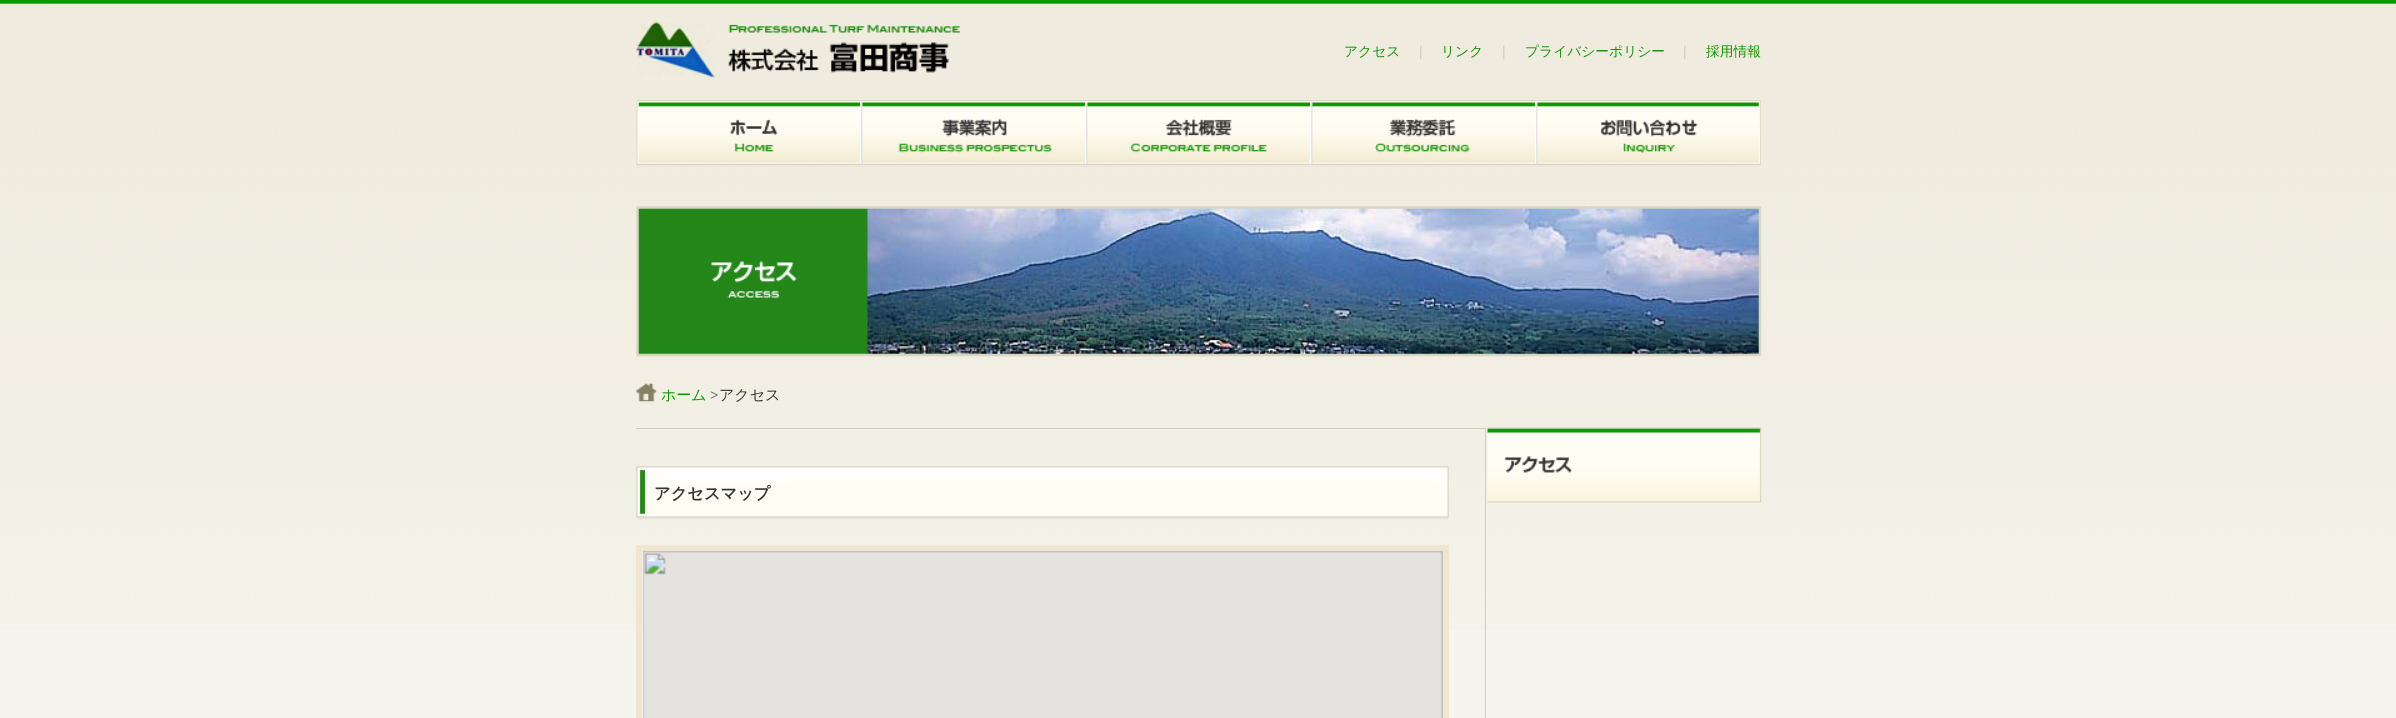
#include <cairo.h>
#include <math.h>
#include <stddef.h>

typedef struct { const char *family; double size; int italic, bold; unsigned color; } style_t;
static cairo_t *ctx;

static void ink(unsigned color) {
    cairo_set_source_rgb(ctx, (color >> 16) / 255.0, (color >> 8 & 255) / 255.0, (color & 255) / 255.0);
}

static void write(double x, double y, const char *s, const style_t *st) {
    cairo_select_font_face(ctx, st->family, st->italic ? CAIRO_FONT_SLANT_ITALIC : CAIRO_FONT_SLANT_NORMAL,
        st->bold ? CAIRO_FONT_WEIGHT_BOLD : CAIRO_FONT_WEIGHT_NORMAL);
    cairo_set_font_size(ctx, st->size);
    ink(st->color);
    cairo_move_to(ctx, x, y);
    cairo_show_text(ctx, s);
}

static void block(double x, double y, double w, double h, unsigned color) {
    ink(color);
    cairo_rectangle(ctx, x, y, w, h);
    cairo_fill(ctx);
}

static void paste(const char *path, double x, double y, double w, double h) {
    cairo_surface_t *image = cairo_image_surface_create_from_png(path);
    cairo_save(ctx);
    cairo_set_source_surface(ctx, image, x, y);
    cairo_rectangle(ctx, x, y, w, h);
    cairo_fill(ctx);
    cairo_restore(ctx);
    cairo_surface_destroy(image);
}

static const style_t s1 = {"WenQuanYi Zen Hei Medium", 13.75, 0, 0, 0x0f9600};
static const style_t s2 = {"WenQuanYi Zen Hei Medium", 13.75, 0, 0, 0xc2beaf};
static const style_t s3 = {"WenQuanYi Zen Hei Medium", 15, 0, 0, 0x0f9600};
static const style_t s4 = {"Liberation Serif", 15, 0, 0, 0x333333};
static const style_t s5 = {"WenQuanYi Zen Hei Medium", 15, 0, 0, 0x333333};
static const style_t s6 = {"WenQuanYi Zen Hei", 16.25, 0, 1, 0x333333};

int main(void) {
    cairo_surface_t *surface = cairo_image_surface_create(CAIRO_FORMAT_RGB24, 2396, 718);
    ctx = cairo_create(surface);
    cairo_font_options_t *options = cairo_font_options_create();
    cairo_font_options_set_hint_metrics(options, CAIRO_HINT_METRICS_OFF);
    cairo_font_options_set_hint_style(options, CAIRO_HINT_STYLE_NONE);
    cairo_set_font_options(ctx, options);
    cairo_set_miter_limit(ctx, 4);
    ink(0xf5f5ee);
    cairo_paint(ctx);
    paste("pic1.png", 0, 0, 2396, 630);
    paste("pic2.png", 636, 22, 324, 56);
    write(1344, 56, "アクセス", &s1);
    write(1414, 56, "｜", &s2);
    write(1441, 56, "リンク", &s1);
    write(1497, 56, "｜", &s2);
    write(1525, 56, "プライバシーポリシー", &s1);
    write(1678, 56, "｜", &s2);
    write(1706, 56, "採用情報", &s1);
    paste("pic3.png", 636, 100, 226, 67);
    paste("pic4.png", 861, 100, 226, 67);
    paste("pic5.png", 1086, 100, 226, 67);
    paste("pic6.png", 1311, 100, 226, 67);
    paste("pic7.png", 1536, 100, 225, 67);
    paste("pic8.png", 636, 206, 1126, 151);
    paste("pic9.png", 636, 383, 21, 19);
    write(661, 400, "ホーム", &s3);
    write(710, 400, ">", &s4);
    write(719, 400, "アクセス", &s5);
    block(636, 428, 850, 1, 0xcecdc6);
    block(1485, 428, 1, 290, 0xcecdc6);
    paste("pic10.png", 636, 466, 813, 54);
    write(654, 499, "アクセスマップ", &s6);
    cairo_rectangle(ctx, 639, 548, 807, 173);
    ink(0xeee6ce);
    cairo_set_line_width(ctx, 6);
    cairo_stroke(ctx);
    paste("pic11.png", 642, 551, 801, 167);
    paste("pic12.png", 1487, 427, 275, 76);
    cairo_surface_write_to_png(surface, "screenshot.png");
    cairo_font_options_destroy(options);
    cairo_destroy(ctx);
    cairo_surface_destroy(surface);
    return 0;
}
